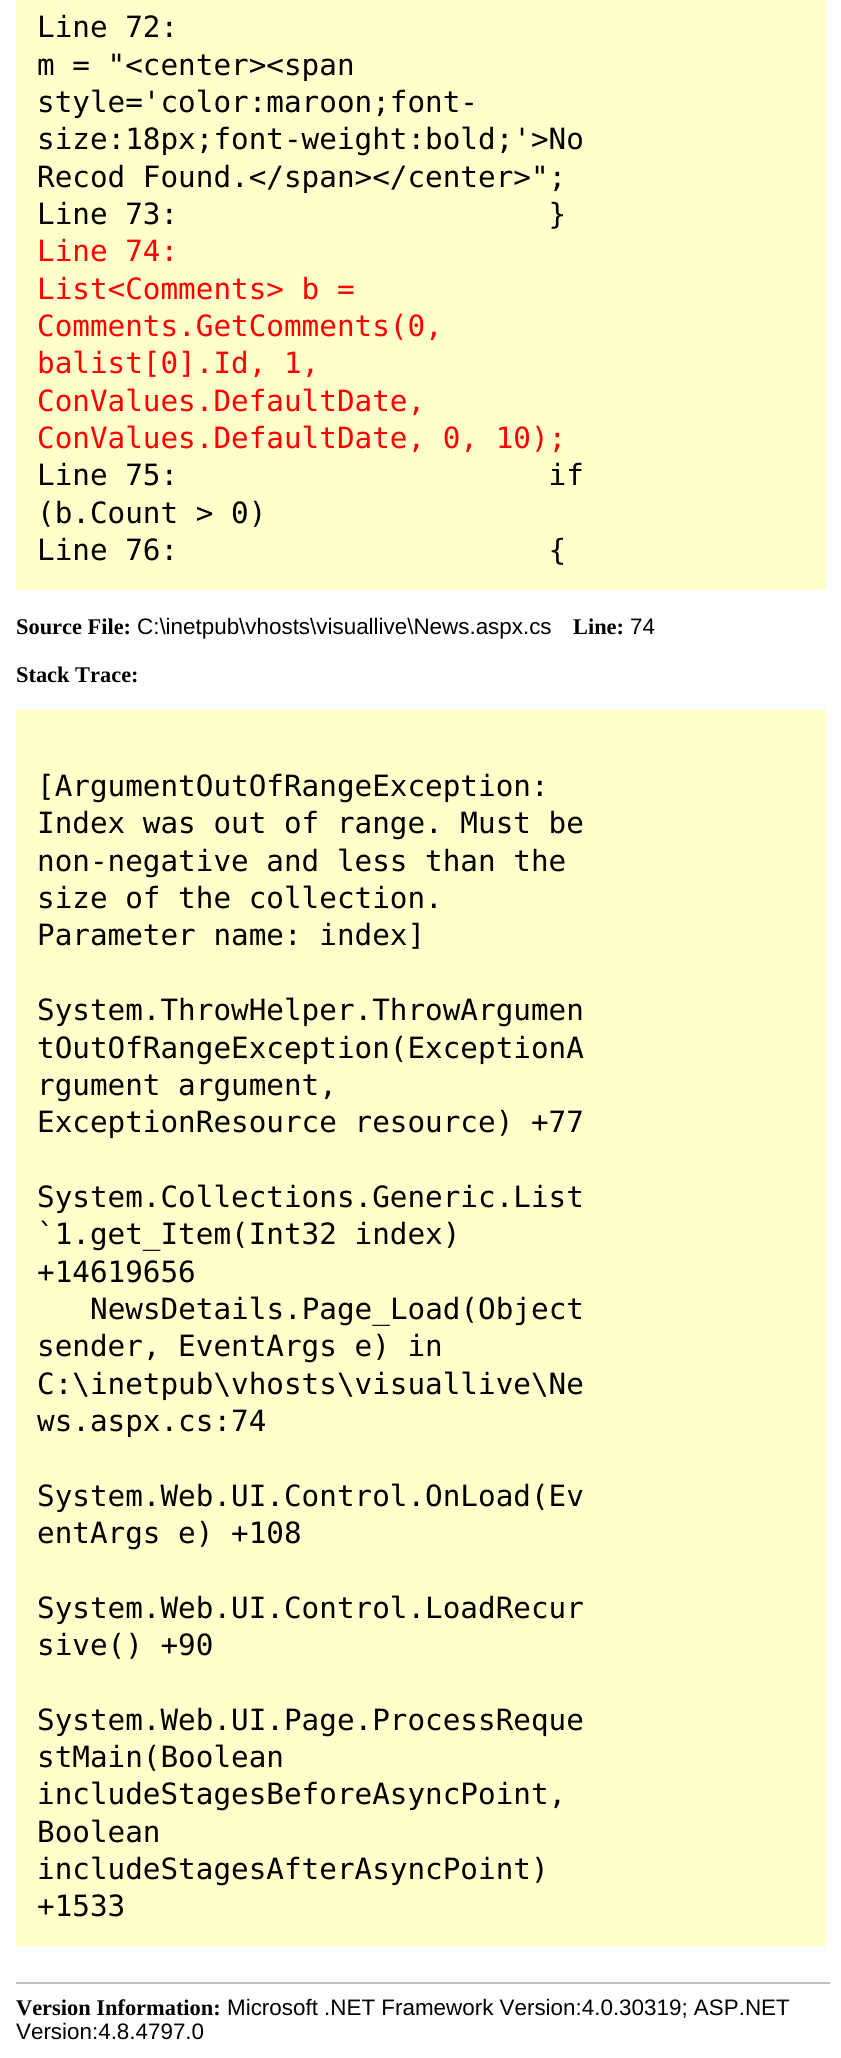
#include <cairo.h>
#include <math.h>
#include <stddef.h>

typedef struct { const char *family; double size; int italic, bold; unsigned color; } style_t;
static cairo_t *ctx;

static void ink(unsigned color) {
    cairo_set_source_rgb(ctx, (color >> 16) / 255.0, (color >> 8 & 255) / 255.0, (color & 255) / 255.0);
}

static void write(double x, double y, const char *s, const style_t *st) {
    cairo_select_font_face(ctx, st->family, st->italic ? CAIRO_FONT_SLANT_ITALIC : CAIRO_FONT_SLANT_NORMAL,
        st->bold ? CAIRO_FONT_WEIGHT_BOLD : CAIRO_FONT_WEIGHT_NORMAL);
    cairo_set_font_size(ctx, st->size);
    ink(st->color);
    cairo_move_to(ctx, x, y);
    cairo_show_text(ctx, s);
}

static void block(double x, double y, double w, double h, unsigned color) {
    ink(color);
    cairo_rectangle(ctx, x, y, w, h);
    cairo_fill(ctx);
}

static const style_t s1 = {"DejaVu Sans Mono", 29.3, 0, 0, 0x000000};
static const style_t s2 = {"DejaVu Sans Mono", 29.3, 0, 0, 0xff0000};
static const style_t s3 = {"Liberation Serif", 22.4, 0, 1, 0x000000};
static const style_t s4 = {"Liberation Sans", 22.4, 0, 0, 0x000000};

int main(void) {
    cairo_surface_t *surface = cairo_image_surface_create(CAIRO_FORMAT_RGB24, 841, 2058);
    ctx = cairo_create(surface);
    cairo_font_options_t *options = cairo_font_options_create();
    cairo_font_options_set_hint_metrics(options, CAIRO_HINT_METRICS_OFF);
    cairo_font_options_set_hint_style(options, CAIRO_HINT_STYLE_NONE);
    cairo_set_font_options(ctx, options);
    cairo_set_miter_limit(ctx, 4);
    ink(0xffffff);
    cairo_paint(ctx);
    block(16, 0, 810, 590, 0xffffcc);
    write(37, 37, "Line 72:", &s1);
    write(37, 75, "m = \"<center><span", &s1);
    write(37, 112, "style='color:maroon;font-", &s1);
    write(37, 149, "size:18px;font-weight:bold;'>No", &s1);
    write(37, 187, "Recod Found.</span></center>\";", &s1);
    write(37, 224, "Line 73:                     }", &s1);
    write(37, 261, "Line 74:", &s2);
    write(37, 299, "List<Comments> b =", &s2);
    write(37, 336, "Comments.GetComments(0,", &s2);
    write(37, 373, "balist[0].Id, 1,", &s2);
    write(37, 411, "ConValues.DefaultDate,", &s2);
    write(37, 448, "ConValues.DefaultDate, 0, 10);", &s2);
    write(37, 485, "Line 75:                     if", &s1);
    write(37, 523, "(b.Count > 0)", &s1);
    write(37, 560, "Line 76:                     {", &s1);
    write(16, 634, "Source File:", &s3);
    write(137, 634, "C:\\inetpub\\vhosts\\visuallive\\News.aspx.cs", &s4);
    write(573, 634, "Line:", &s3);
    write(630, 634, "74", &s4);
    write(16, 682, "Stack Trace:", &s3);
    block(16, 710, 810, 1236, 0xffffcc);
    write(37, 796, "[ArgumentOutOfRangeException:", &s1);
    write(37, 833, "Index was out of range. Must be", &s1);
    write(37, 871, "non-negative and less than the", &s1);
    write(37, 908, "size of the collection.", &s1);
    write(37, 945, "Parameter name: index]", &s1);
    write(37, 1020, "System.ThrowHelper.ThrowArgumen", &s1);
    write(37, 1058, "tOutOfRangeException(ExceptionA", &s1);
    write(37, 1095, "rgument argument,", &s1);
    write(37, 1132, "ExceptionResource resource) +77", &s1);
    write(37, 1207, "System.Collections.Generic.List", &s1);
    write(37, 1244, "`1.get_Item(Int32 index)", &s1);
    write(37, 1282, "+14619656", &s1);
    write(90, 1319, "NewsDetails.Page_Load(Object", &s1);
    write(37, 1356, "sender, EventArgs e) in", &s1);
    write(37, 1394, "C:\\inetpub\\vhosts\\visuallive\\Ne", &s1);
    write(37, 1431, "ws.aspx.cs:74", &s1);
    write(37, 1506, "System.Web.UI.Control.OnLoad(Ev", &s1);
    write(37, 1543, "entArgs e) +108", &s1);
    write(37, 1618, "System.Web.UI.Control.LoadRecur", &s1);
    write(37, 1655, "sive() +90", &s1);
    write(37, 1730, "System.Web.UI.Page.ProcessReque", &s1);
    write(37, 1767, "stMain(Boolean", &s1);
    write(37, 1804, "includeStagesBeforeAsyncPoint,", &s1);
    write(37, 1842, "Boolean", &s1);
    write(37, 1879, "includeStagesAfterAsyncPoint)", &s1);
    write(37, 1916, "+1533", &s1);
    block(16, 1982, 814, 2, 0xc0c0c0);
    write(16, 2015, "Version Information:", &s3);
    write(227, 2015, "Microsoft .NET Framework Version:4.0.30319; ASP.NET", &s4);
    write(16, 2039, "Version:4.8.4797.0", &s4);
    cairo_surface_write_to_png(surface, "screenshot.png");
    cairo_font_options_destroy(options);
    cairo_destroy(ctx);
    cairo_surface_destroy(surface);
    return 0;
}
